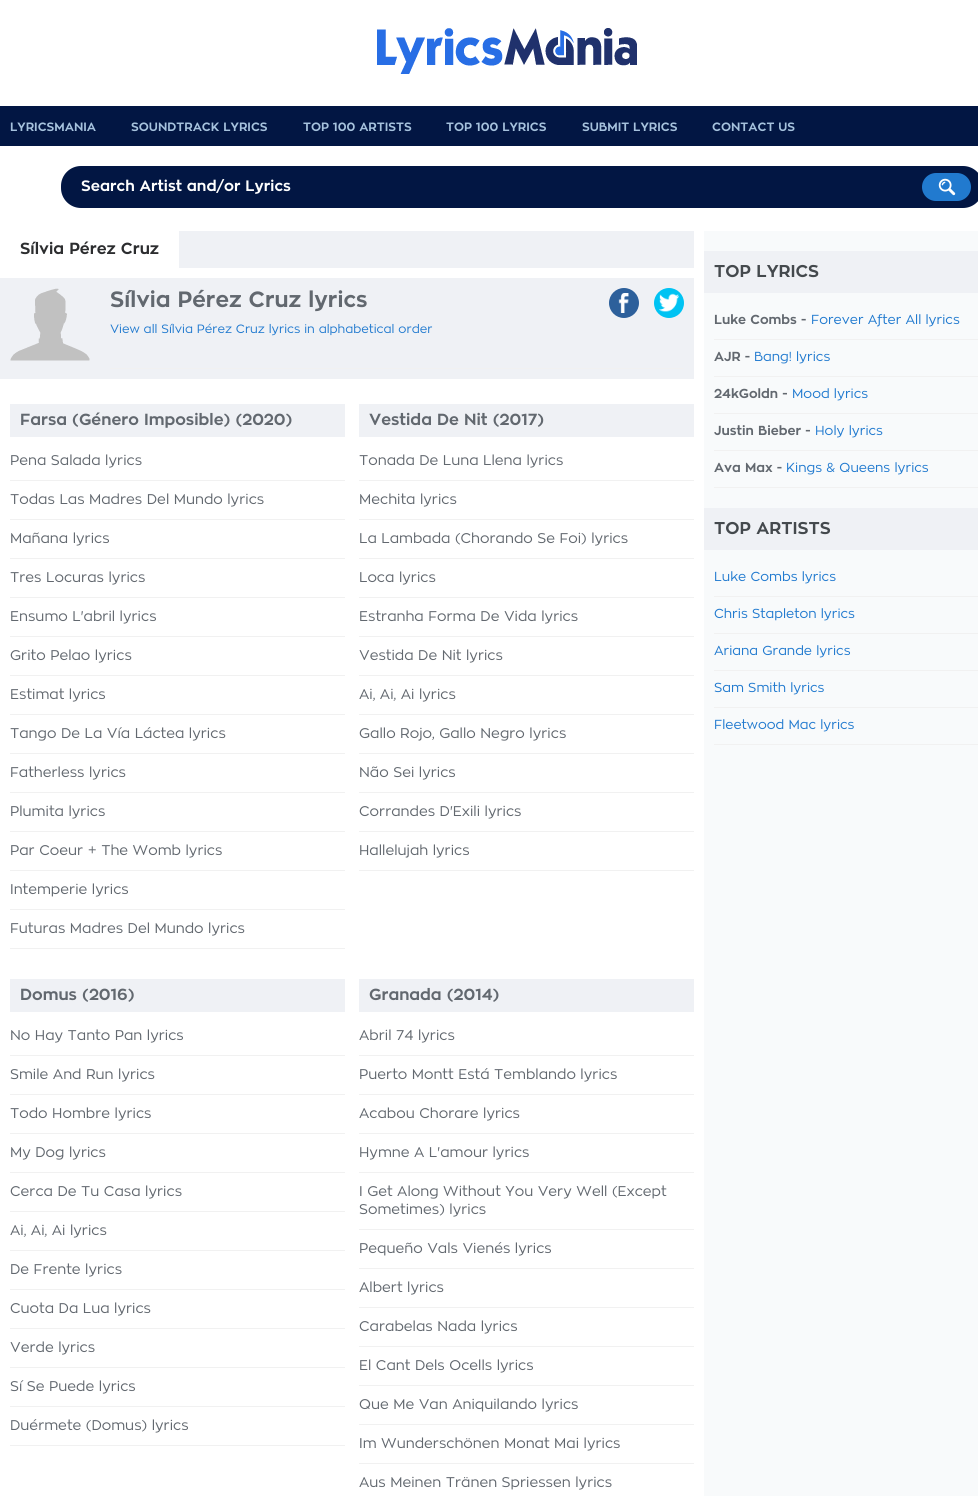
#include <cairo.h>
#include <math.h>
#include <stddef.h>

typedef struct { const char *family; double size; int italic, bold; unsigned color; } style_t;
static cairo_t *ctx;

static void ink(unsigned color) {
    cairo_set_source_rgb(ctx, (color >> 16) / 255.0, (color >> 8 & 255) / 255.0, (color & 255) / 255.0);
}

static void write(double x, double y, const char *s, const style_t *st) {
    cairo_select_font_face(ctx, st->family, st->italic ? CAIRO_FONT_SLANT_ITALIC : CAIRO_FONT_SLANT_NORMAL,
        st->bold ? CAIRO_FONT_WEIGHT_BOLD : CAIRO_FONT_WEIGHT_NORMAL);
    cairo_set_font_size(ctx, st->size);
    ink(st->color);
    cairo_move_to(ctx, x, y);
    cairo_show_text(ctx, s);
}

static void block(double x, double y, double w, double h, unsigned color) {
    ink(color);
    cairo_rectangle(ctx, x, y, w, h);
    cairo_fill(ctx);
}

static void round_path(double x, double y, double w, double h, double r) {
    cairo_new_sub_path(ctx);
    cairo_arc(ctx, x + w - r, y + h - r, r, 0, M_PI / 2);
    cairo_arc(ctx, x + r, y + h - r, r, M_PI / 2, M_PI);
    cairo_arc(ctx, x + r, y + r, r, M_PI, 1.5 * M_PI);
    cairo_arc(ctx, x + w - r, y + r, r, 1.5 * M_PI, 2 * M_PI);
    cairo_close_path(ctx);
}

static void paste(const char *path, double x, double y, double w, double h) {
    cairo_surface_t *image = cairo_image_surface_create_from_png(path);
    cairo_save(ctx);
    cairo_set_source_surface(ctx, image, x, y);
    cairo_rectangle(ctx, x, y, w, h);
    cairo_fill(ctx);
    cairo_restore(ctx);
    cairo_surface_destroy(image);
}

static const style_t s1 = {"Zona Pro", 12, 0, 1, 0xa6c2dd};
static const style_t s2 = {"Zona Pro", 15, 0, 1, 0xfefefe};
static const style_t s3 = {"Zona Pro", 16, 0, 1, 0x2c2d2f};
static const style_t s4 = {"Zona Pro", 22, 0, 1, 0x62686f};
static const style_t s5 = {"Zona Pro", 12, 0, 0, 0x217acf};
static const style_t s6 = {"Zona Pro", 16, 0, 1, 0x62686f};
static const style_t s7 = {"Zona Pro", 14, 0, 0, 0x62686f};
static const style_t s8 = {"Zona Pro", 17, 0, 1, 0x44494d};
static const style_t s9 = {"Zona Pro", 13, 0, 1, 0x62686f};
static const style_t s10 = {"Zona Pro", 13, 0, 0, 0x217acf};

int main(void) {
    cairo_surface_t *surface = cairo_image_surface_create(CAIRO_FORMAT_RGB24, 978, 1496);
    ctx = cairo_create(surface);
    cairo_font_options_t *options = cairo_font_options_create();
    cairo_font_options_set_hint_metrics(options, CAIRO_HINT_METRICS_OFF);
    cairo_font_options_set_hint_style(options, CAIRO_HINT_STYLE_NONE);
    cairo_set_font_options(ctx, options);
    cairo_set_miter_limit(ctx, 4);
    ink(0xffffff);
    cairo_paint(ctx);
    paste("pic1.png", 377, 28, 260, 46);
    block(0, 106, 978, 40, 0x021643);
    write(10, 131, "LYRICSMANIA", &s1);
    write(131, 131, "SOUNDTRACK LYRICS", &s1);
    write(303, 131, "TOP 100 ARTISTS", &s1);
    write(446, 131, "TOP 100 LYRICS", &s1);
    write(582, 131, "SUBMIT LYRICS", &s1);
    write(712, 131, "CONTACT US", &s1);
    ink(0x021643);
    round_path(61, 166, 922, 42, 20);
    cairo_fill(ctx);
    write(81, 191, "Search Artist and/or Lyrics", &s2);
    paste("pic2.png", 922, 173, 49, 28);
    block(179, 231, 515, 37, 0xeff1f5);
    write(20, 254, "Sílvia Pérez Cruz", &s3);
    block(0, 278, 694, 101, 0xeff1f5);
    paste("pic3.png", 10, 288, 80, 73);
    block(110, 368, 574, 1, 0xf1f1f1);
    write(110, 307, "Sílvia Pérez Cruz lyrics", &s4);
    write(110, 333, "View all Sílvia Pérez Cruz lyrics in alphabetical order", &s5);
    ink(0x2d609b);
    cairo_new_path(ctx);
    cairo_arc(ctx, 624, 303, 15, 0, 2 * M_PI);
    cairo_fill(ctx);
    paste("pic4.png", 618, 293, 11, 20);
    ink(0x00c3f3);
    cairo_arc(ctx, 669, 303, 15, 0, 2 * M_PI);
    cairo_fill(ctx);
    paste("pic5.png", 659, 293, 20, 19);
    block(10, 404, 335, 33, 0xeff1f5);
    write(20, 425, "Farsa (Género Imposible) (2020)", &s6);
    block(10, 480, 335, 1, 0xf1f1f1);
    write(10, 465, "Pena Salada lyrics", &s7);
    block(10, 519, 335, 1, 0xf1f1f1);
    write(10, 504, "Todas Las Madres Del Mundo lyrics", &s7);
    block(10, 558, 335, 1, 0xf1f1f1);
    write(10, 543, "Mañana lyrics", &s7);
    block(10, 597, 335, 1, 0xf1f1f1);
    write(10, 582, "Tres Locuras lyrics", &s7);
    block(10, 636, 335, 1, 0xf1f1f1);
    write(10, 621, "Ensumo L'abril lyrics", &s7);
    block(10, 675, 335, 1, 0xf1f1f1);
    write(10, 660, "Grito Pelao lyrics", &s7);
    block(10, 714, 335, 1, 0xf1f1f1);
    write(10, 699, "Estimat lyrics", &s7);
    block(10, 753, 335, 1, 0xf1f1f1);
    write(10, 738, "Tango De La Vía Láctea lyrics", &s7);
    block(10, 792, 335, 1, 0xf1f1f1);
    write(10, 777, "Fatherless lyrics", &s7);
    block(10, 831, 335, 1, 0xf1f1f1);
    write(10, 816, "Plumita lyrics", &s7);
    block(10, 870, 335, 1, 0xf1f1f1);
    write(10, 855, "Par Coeur + The Womb lyrics", &s7);
    block(10, 909, 335, 1, 0xf1f1f1);
    write(10, 894, "Intemperie lyrics", &s7);
    block(10, 948, 335, 1, 0xf1f1f1);
    write(10, 933, "Futuras Madres Del Mundo lyrics", &s7);
    block(359, 404, 335, 33, 0xeff1f5);
    write(369, 425, "Vestida De Nit (2017)", &s6);
    block(359, 480, 335, 1, 0xf1f1f1);
    write(359, 465, "Tonada De Luna Llena lyrics", &s7);
    block(359, 519, 335, 1, 0xf1f1f1);
    write(359, 504, "Mechita lyrics", &s7);
    block(359, 558, 335, 1, 0xf1f1f1);
    write(359, 543, "La Lambada (Chorando Se Foi) lyrics", &s7);
    block(359, 597, 335, 1, 0xf1f1f1);
    write(359, 582, "Loca lyrics", &s7);
    block(359, 636, 335, 1, 0xf1f1f1);
    write(359, 621, "Estranha Forma De Vida lyrics", &s7);
    block(359, 675, 335, 1, 0xf1f1f1);
    write(359, 660, "Vestida De Nit lyrics", &s7);
    block(359, 714, 335, 1, 0xf1f1f1);
    write(359, 699, "Ai, Ai, Ai lyrics", &s7);
    block(359, 753, 335, 1, 0xf1f1f1);
    write(359, 738, "Gallo Rojo, Gallo Negro lyrics", &s7);
    block(359, 792, 335, 1, 0xf1f1f1);
    write(359, 777, "Não Sei lyrics", &s7);
    block(359, 831, 335, 1, 0xf1f1f1);
    write(359, 816, "Corrandes D'Exili lyrics", &s7);
    block(359, 870, 335, 1, 0xf1f1f1);
    write(359, 855, "Hallelujah lyrics", &s7);
    block(10, 979, 335, 33, 0xeff1f5);
    write(20, 1000, "Domus (2016)", &s6);
    block(10, 1055, 335, 1, 0xf1f1f1);
    write(10, 1040, "No Hay Tanto Pan lyrics", &s7);
    block(10, 1094, 335, 1, 0xf1f1f1);
    write(10, 1079, "Smile And Run lyrics", &s7);
    block(10, 1133, 335, 1, 0xf1f1f1);
    write(10, 1118, "Todo Hombre lyrics", &s7);
    block(10, 1172, 335, 1, 0xf1f1f1);
    write(10, 1157, "My Dog lyrics", &s7);
    block(10, 1211, 335, 1, 0xf1f1f1);
    write(10, 1196, "Cerca De Tu Casa lyrics", &s7);
    block(10, 1250, 335, 1, 0xf1f1f1);
    write(10, 1235, "Ai, Ai, Ai lyrics", &s7);
    block(10, 1289, 335, 1, 0xf1f1f1);
    write(10, 1274, "De Frente lyrics", &s7);
    block(10, 1328, 335, 1, 0xf1f1f1);
    write(10, 1313, "Cuota Da Lua lyrics", &s7);
    block(10, 1367, 335, 1, 0xf1f1f1);
    write(10, 1352, "Verde lyrics", &s7);
    block(10, 1406, 335, 1, 0xf1f1f1);
    write(10, 1391, "Sí Se Puede lyrics", &s7);
    block(10, 1445, 335, 1, 0xf1f1f1);
    write(10, 1430, "Duérmete (Domus) lyrics", &s7);
    block(359, 979, 335, 33, 0xeff1f5);
    write(369, 1000, "Granada (2014)", &s6);
    block(359, 1055, 335, 1, 0xf1f1f1);
    write(359, 1040, "Abril 74 lyrics", &s7);
    block(359, 1094, 335, 1, 0xf1f1f1);
    write(359, 1079, "Puerto Montt Está Temblando lyrics", &s7);
    block(359, 1133, 335, 1, 0xf1f1f1);
    write(359, 1118, "Acabou Chorare lyrics", &s7);
    block(359, 1172, 335, 1, 0xf1f1f1);
    write(359, 1157, "Hymne A L'amour lyrics", &s7);
    block(359, 1229, 335, 1, 0xf1f1f1);
    write(359, 1196, "I Get Along Without You Very Well (Except", &s7);
    write(359, 1214, "Sometimes) lyrics", &s7);
    block(359, 1268, 335, 1, 0xf1f1f1);
    write(359, 1253, "Pequeño Vals Vienés lyrics", &s7);
    block(359, 1307, 335, 1, 0xf1f1f1);
    write(359, 1292, "Albert lyrics", &s7);
    block(359, 1346, 335, 1, 0xf1f1f1);
    write(359, 1331, "Carabelas Nada lyrics", &s7);
    block(359, 1385, 335, 1, 0xf1f1f1);
    write(359, 1370, "El Cant Dels Ocells lyrics", &s7);
    block(359, 1424, 335, 1, 0xf1f1f1);
    write(359, 1409, "Que Me Van Aniquilando lyrics", &s7);
    block(359, 1463, 335, 1, 0xf1f1f1);
    write(359, 1448, "Im Wunderschönen Monat Mai lyrics", &s7);
    write(359, 1487, "Aus Meinen Tränen Spriessen lyrics", &s7);
    block(704, 231, 274, 1265, 0xf8fafb);
    block(704, 251, 274, 42, 0xeff1f5);
    write(714, 277, "TOP LYRICS", &s8);
    block(714, 339, 264, 1, 0xf1f1f1);
    write(714, 324, "Luke Combs -", &s9);
    write(811, 324, "Forever After All lyrics", &s10);
    block(714, 376, 264, 1, 0xf1f1f1);
    write(714, 361, "AJR -", &s9);
    write(754, 361, "Bang! lyrics", &s10);
    block(714, 413, 264, 1, 0xf1f1f1);
    write(714, 398, "24kGoldn -", &s9);
    write(792, 398, "Mood lyrics", &s10);
    block(714, 450, 264, 1, 0xf1f1f1);
    write(714, 435, "Justin Bieber -", &s9);
    write(815, 435, "Holy lyrics", &s10);
    block(714, 487, 264, 1, 0xf1f1f1);
    write(714, 472, "Ava Max -", &s9);
    write(786, 472, "Kings & Queens lyrics", &s10);
    block(704, 508, 274, 42, 0xeff1f5);
    write(714, 534, "TOP ARTISTS", &s8);
    block(714, 596, 264, 1, 0xf1f1f1);
    write(714, 581, "Luke Combs lyrics", &s10);
    block(714, 633, 264, 1, 0xf1f1f1);
    write(714, 618, "Chris Stapleton lyrics", &s10);
    block(714, 670, 264, 1, 0xf1f1f1);
    write(714, 655, "Ariana Grande lyrics", &s10);
    block(714, 707, 264, 1, 0xf1f1f1);
    write(714, 692, "Sam Smith lyrics", &s10);
    block(714, 744, 264, 1, 0xf1f1f1);
    write(714, 729, "Fleetwood Mac lyrics", &s10);
    cairo_surface_write_to_png(surface, "screenshot.png");
    cairo_font_options_destroy(options);
    cairo_destroy(ctx);
    cairo_surface_destroy(surface);
    return 0;
}
